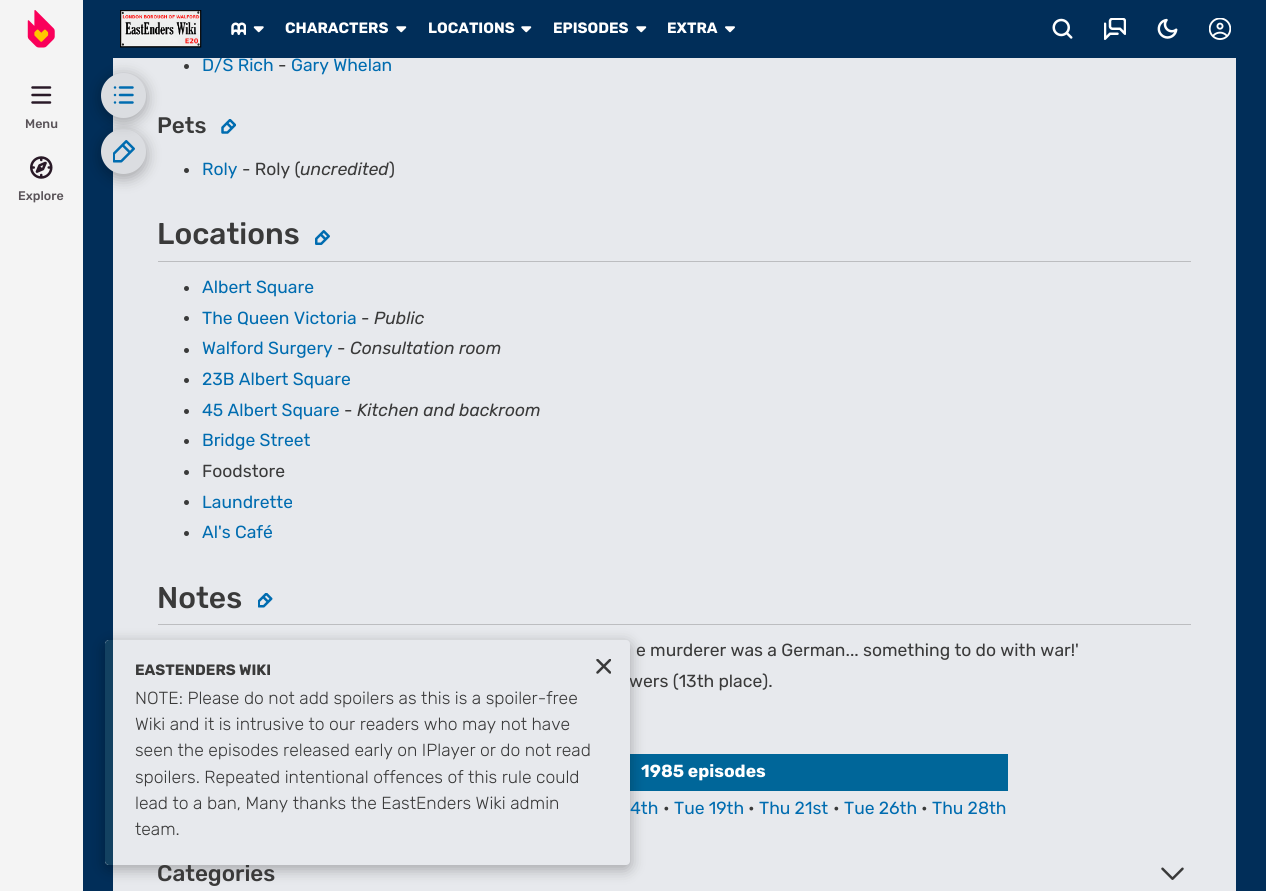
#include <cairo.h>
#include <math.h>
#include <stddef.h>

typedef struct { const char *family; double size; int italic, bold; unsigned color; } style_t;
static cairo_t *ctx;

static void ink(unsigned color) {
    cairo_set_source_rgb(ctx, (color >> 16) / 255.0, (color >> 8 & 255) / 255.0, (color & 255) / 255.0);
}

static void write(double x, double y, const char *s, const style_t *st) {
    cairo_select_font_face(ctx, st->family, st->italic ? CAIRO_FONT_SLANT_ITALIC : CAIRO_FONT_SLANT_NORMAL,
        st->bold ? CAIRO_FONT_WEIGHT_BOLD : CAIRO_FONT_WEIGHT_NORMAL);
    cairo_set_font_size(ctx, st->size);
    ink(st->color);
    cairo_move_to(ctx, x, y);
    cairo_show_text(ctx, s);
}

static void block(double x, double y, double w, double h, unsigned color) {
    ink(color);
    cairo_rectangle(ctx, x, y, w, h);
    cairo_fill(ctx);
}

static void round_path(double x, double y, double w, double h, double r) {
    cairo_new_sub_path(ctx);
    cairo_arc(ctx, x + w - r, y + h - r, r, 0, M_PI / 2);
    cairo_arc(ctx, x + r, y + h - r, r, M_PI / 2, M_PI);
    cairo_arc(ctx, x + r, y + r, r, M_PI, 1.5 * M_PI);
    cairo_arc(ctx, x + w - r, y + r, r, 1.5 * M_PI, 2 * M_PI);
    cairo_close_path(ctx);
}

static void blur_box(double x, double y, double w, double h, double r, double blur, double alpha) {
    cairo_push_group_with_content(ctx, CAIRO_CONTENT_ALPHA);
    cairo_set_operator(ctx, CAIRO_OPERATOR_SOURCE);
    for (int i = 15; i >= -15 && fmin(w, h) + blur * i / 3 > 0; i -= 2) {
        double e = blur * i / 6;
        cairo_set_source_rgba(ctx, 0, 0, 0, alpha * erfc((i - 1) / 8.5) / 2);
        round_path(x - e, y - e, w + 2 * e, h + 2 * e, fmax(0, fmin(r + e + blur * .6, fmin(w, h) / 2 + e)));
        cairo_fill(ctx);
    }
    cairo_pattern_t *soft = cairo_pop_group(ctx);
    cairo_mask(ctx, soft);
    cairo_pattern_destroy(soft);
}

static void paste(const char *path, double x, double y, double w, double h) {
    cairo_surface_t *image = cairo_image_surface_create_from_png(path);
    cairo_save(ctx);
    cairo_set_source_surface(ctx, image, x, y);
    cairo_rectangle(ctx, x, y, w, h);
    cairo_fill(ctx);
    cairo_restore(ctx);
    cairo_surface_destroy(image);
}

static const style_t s1 = {"Rubik", 17.5, 0, 0, 0x006cb0};
static const style_t s2 = {"Rubik", 15, 0, 1, 0xffffff};
static const style_t s3 = {"Rubik Medium", 12.5, 0, 0, 0x595358};
static const style_t s4 = {"Rubik", 17.5, 0, 0, 0x3a3a3a};
static const style_t s5 = {"Rubik Medium", 22.5, 0, 0, 0x3a3a3a};
static const style_t s6 = {"Rubik", 17.5, 1, 0, 0x3a3a3a};
static const style_t s7 = {"Rubik Medium", 30, 0, 0, 0x3a3a3a};
static const style_t s8 = {"Rubik", 17.5, 0, 1, 0xffffff};
static const style_t s9 = {"Rubik", 15, 0, 1, 0x3a3a3a};
static const style_t s10 = {"Rubik Light", 17.5, 0, 0, 0x3a3a3a};

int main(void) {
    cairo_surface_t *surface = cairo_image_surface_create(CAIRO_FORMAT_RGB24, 1266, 891);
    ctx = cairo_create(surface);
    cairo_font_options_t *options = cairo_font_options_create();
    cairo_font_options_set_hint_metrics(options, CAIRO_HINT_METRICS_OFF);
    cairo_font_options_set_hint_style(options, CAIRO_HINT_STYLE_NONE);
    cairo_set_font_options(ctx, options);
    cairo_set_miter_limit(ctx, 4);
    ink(0x012e59);
    cairo_paint(ctx);
    block(113, 58, 1123, 833, 0xe7e9ed);
    write(202, 71, "D/S Rich", &s1);
    block(220, 57, 3, 1, 0x012e59);
    ink(0x000000);
    blur_box(101, 133, 45, 45, 22.5, 7.5, 0.3);
    ink(0xdbdde1);
    cairo_arc(ctx, 123.5, 151.5, 22.5, 0, 2 * M_PI);
    cairo_fill(ctx);
    paste("pic14.png", 113, 140, 22, 23);
    ink(0x000000);
    blur_box(101, 76, 45, 45, 22.5, 7.5, 0.3);
    block(158, 624, 1033, 1, 0xbcbdc0);
    block(630, 754, 378, 37, 0x006699);
    ink(0x000000);
    blur_box(105, 644, 525, 225, 4, 7.5, 0.3);
    block(0, 0, 83, 891, 0xf4f4f4);
    paste("pic1.png", 27, 10, 28, 38);
    paste("pic2.png", 120, 10, 82, 38);
    paste("pic3.png", 231, 22, 15, 13);
    paste("pic4.png", 253, 26, 11, 7);
    write(285, 33, "CHARACTERS", &s2);
    paste("pic5.png", 396, 26, 11, 7);
    write(428, 33, "LOCATIONS", &s2);
    paste("pic5.png", 521, 26, 11, 7);
    write(553, 33, "EPISODES", &s2);
    paste("pic5.png", 636, 26, 11, 7);
    write(667, 33, "EXTRA", &s2);
    paste("pic6.png", 725, 26, 10, 7);
    paste("pic7.png", 1052, 18, 21, 21);
    paste("pic8.png", 1104, 18, 22, 22);
    paste("pic9.png", 1157, 18, 21, 21);
    paste("pic10.png", 1209, 18, 22, 22);
    paste("pic11.png", 31, 86, 21, 18);
    write(25, 128, "Menu", &s3);
    paste("pic12.png", 30, 156, 23, 23);
    write(18, 200, "Explore", &s3);
    ink(0xdbdde1);
    cairo_new_path(ctx);
    cairo_arc(ctx, 123.5, 95.5, 22.5, 0, 2 * M_PI);
    cairo_fill(ctx);
    paste("pic13.png", 113, 86, 21, 18);
    ink(0x3a3a3a);
    cairo_arc(ctx, 186.5, 66.5, 2.5, 0, 2 * M_PI);
    cairo_fill(ctx);
    write(278, 71, "-", &s4);
    write(291, 71, "Gary Whelan", &s1);
    write(157, 133, "Pets", &s5);
    paste("pic15.png", 221, 119, 15, 15);
    cairo_arc(ctx, 186.5, 170.5, 2.5, 0, 2 * M_PI);
    cairo_fill(ctx);
    write(202, 175, "Roly", &s1);
    write(242, 175, "- Roly (", &s4);
    write(300, 175, "uncredited", &s6);
    write(389, 175, ")", &s4);
    block(158, 261, 1033, 1, 0xbcbdc0);
    write(157, 244, "Locations", &s7);
    paste("pic16.png", 315, 230, 15, 15);
    cairo_arc(ctx, 186.5, 288.5, 2.5, 0, 2 * M_PI);
    cairo_fill(ctx);
    write(202, 293, "Albert Square", &s1);
    ink(0x3a3a3a);
    cairo_new_path(ctx);
    cairo_arc(ctx, 186.5, 318.5, 2.5, 0, 2 * M_PI);
    cairo_fill(ctx);
    write(202, 324, "The Queen Victoria", &s1);
    write(361, 324, "-", &s4);
    write(374, 324, "Public", &s6);
    cairo_new_path(ctx);
    cairo_arc(ctx, 186.5, 350.5, 2.5, 0, 2 * M_PI);
    cairo_fill(ctx);
    write(202, 354, "Walford Surgery", &s1);
    write(337, 354, "-", &s4);
    write(350, 354, "Consultation room", &s6);
    cairo_new_path(ctx);
    cairo_arc(ctx, 186.5, 380.5, 2.5, 0, 2 * M_PI);
    cairo_fill(ctx);
    write(202, 385, "23B Albert Square", &s1);
    ink(0x3a3a3a);
    cairo_new_path(ctx);
    cairo_arc(ctx, 186.5, 411.5, 2.5, 0, 2 * M_PI);
    cairo_fill(ctx);
    write(202, 416, "45 Albert Square", &s1);
    write(344, 416, "-", &s4);
    write(357, 416, "Kitchen and backroom", &s6);
    cairo_new_path(ctx);
    cairo_arc(ctx, 186.5, 441.5, 2.5, 0, 2 * M_PI);
    cairo_fill(ctx);
    write(202, 446, "Bridge Street", &s1);
    ink(0x3a3a3a);
    cairo_new_path(ctx);
    cairo_arc(ctx, 186.5, 472.5, 2.5, 0, 2 * M_PI);
    cairo_fill(ctx);
    write(202, 477, "Foodstore", &s4);
    cairo_new_path(ctx);
    cairo_arc(ctx, 186.5, 502.5, 2.5, 0, 2 * M_PI);
    cairo_fill(ctx);
    write(202, 508, "Laundrette", &s1);
    ink(0x3a3a3a);
    cairo_new_path(ctx);
    cairo_arc(ctx, 186.5, 533.5, 2.5, 0, 2 * M_PI);
    cairo_fill(ctx);
    write(202, 538, "Al's Café", &s1);
    write(157, 608, "Notes", &s7);
    paste("pic17.png", 258, 593, 15, 15);
    write(636, 656, "e murderer was a German... something to do with war!'", &s4);
    write(629, 687, "wers (13th place).", &s4);
    write(641, 777, "1985 episodes", &s8);
    write(630, 814, "4th", &s1);
    write(663, 814, "•", &s4);
    write(674, 814, "Tue 19th", &s1);
    write(748, 814, "•", &s4);
    write(759, 814, "Thu 21st", &s1);
    write(833, 814, "•", &s4);
    write(844, 814, "Tue 26th", &s1);
    write(921, 814, "•", &s4);
    write(932, 814, "Thu 28th", &s1);
    write(157, 881, "Categories", &s5);
    paste("pic18.png", 1161, 867, 23, 13);
    ink(0xe7e9ed);
    round_path(105, 640, 525, 225, 4);
    cairo_fill(ctx);
    ink(0x134161);
    cairo_new_path(ctx);
    cairo_move_to(ctx, 109, 640);
    cairo_line_to(ctx, 113, 640);
    cairo_line_to(ctx, 113, 865);
    cairo_line_to(ctx, 109, 865);
    cairo_curve_to(ctx, 107, 865, 105, 863, 105, 861);
    cairo_line_to(ctx, 105, 644);
    cairo_curve_to(ctx, 105, 642, 107, 640, 109, 640);
    cairo_close_path(ctx);
    cairo_fill(ctx);
    write(135, 675, "EASTENDERS WIKI", &s9);
    paste("pic19.png", 596, 659, 15, 15);
    write(135, 704, "NOTE: Please do not add spoilers as this is a spoiler-free", &s10);
    write(135, 730, "Wiki and it is intrusive to our readers who may not have", &s10);
    write(135, 756, "seen the episodes released early on IPlayer or do not read", &s10);
    write(135, 783, "spoilers. Repeated intentional offences of this rule could", &s10);
    write(135, 809, "lead to a ban, Many thanks the EastEnders Wiki admin", &s10);
    write(135, 835, "team.", &s10);
    cairo_surface_write_to_png(surface, "screenshot.png");
    cairo_font_options_destroy(options);
    cairo_destroy(ctx);
    cairo_surface_destroy(surface);
    return 0;
}
